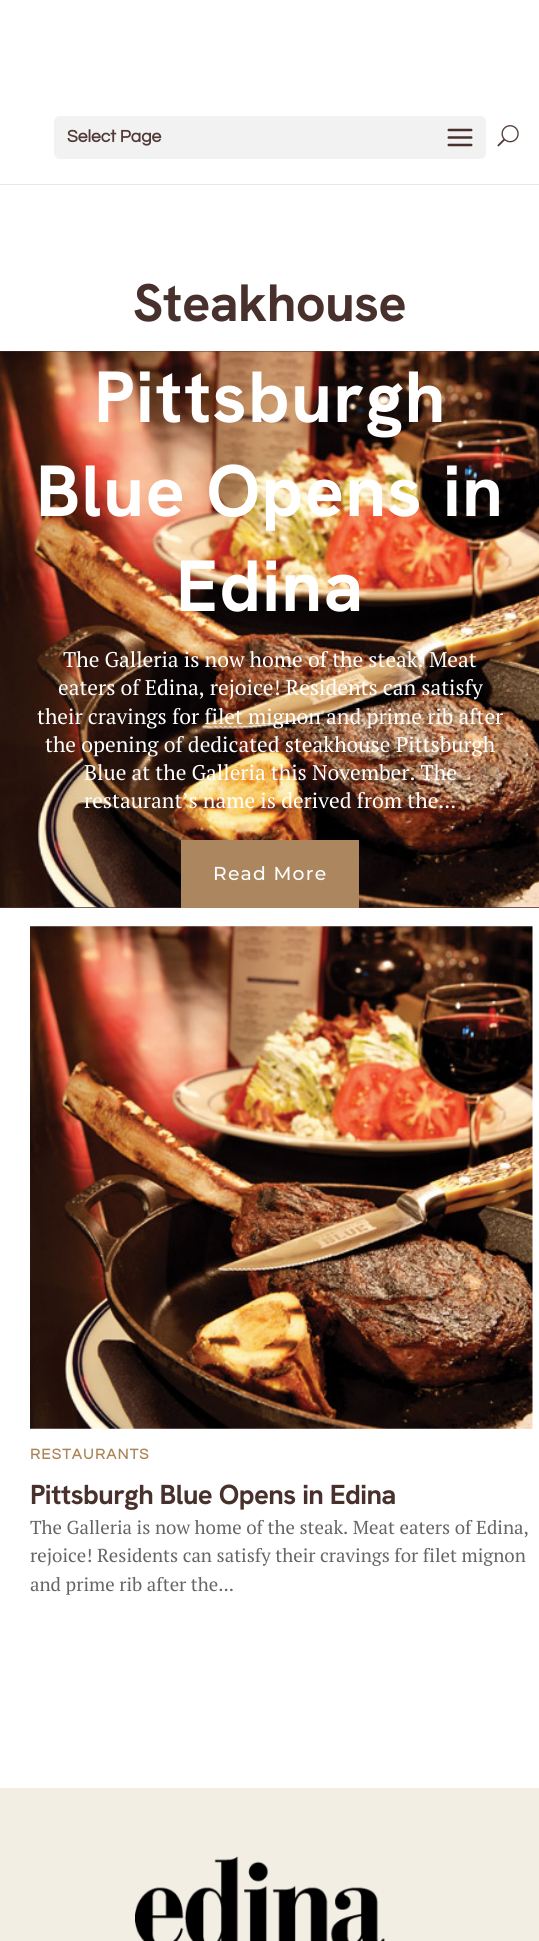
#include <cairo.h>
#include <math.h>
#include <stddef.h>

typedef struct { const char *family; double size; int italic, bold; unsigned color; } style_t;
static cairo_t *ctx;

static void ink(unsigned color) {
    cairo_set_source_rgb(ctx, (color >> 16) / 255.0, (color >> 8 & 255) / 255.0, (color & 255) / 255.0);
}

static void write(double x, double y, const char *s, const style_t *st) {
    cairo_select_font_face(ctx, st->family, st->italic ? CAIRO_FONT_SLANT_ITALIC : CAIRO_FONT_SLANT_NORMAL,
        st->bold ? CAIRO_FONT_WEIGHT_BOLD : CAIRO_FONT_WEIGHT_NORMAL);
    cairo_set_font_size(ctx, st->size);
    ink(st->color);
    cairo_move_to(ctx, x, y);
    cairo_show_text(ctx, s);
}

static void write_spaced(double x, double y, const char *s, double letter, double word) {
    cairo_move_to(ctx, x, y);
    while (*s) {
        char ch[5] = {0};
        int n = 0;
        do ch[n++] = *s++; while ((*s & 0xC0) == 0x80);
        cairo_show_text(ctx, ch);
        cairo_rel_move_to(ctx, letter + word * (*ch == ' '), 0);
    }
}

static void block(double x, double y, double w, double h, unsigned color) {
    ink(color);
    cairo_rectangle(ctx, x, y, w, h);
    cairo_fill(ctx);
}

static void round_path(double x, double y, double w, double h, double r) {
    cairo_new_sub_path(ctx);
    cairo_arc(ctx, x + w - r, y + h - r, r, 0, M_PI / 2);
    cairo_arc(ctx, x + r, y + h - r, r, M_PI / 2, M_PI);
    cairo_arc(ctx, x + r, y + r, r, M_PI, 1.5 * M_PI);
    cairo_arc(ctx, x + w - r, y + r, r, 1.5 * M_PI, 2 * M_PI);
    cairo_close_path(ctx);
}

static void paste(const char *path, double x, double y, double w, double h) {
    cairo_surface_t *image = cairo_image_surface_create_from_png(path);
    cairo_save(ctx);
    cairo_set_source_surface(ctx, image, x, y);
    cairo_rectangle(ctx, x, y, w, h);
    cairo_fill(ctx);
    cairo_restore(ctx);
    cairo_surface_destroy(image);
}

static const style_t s1 = {"Questrial", 17.5, 0, 1, 0x513a37};
static const style_t s2 = {"PT Serif", 21.25, 0, 0, 0xffffff};
static const style_t s3 = {"PT Serif", 18.75, 0, 0, 0x666666};

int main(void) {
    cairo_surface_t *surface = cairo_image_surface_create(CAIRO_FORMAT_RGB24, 539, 1941);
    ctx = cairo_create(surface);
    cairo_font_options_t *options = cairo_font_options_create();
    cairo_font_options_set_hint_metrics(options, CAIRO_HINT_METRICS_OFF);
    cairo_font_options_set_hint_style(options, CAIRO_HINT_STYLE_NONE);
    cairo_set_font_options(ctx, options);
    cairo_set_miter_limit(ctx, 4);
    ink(0xffffff);
    cairo_paint(ctx);
    block(0, 184, 539, 1, 0xe6e6e6);
    ink(0xf2f2f2);
    round_path(54, 116, 432, 43, 6);
    cairo_fill(ctx);
    write(67, 142, "Select Page", &s1);
    paste("pic1.png", 447, 128, 26, 19);
    paste("pic2.png", 497, 125, 22, 22);
    cairo_select_font_face(ctx, "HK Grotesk", CAIRO_FONT_SLANT_NORMAL, CAIRO_FONT_WEIGHT_BOLD);
    cairo_set_font_size(ctx, 52.5);
    ink(0x48302c);
    write_spaced(133, 321, "Steakhouse", -0.6, 0);
    block(0, 351, 539, 557, 0x48302c);
    paste("pic3.png", 0, 351, 539, 557);
    cairo_set_font_size(ctx, 72.5);
    ink(0xffffff);
    write_spaced(94, 422, "Pittsburgh", 1.25, 0);
    write_spaced(36, 516, "Blue Opens in", 1.25, 0);
    write_spaced(176, 611, "Edina", 1.25, 0);
    write(63, 667, "The Galleria is now home of the steak. Meat", &s2);
    write(58, 695, "eaters of Edina, rejoice! Residents can satisfy", &s2);
    write(37, 724, "their cravings for filet mignon and prime rib after", &s2);
    write(45, 752, "the opening of dedicated steakhouse Pittsburgh", &s2);
    write(84, 780, "Blue at the Galleria this November. The", &s2);
    write(84, 808, "restaurant’s name is derived from the...", &s2);
    block(181, 840, 178, 68, 0xab865e);
    cairo_select_font_face(ctx, "Montserrat Medium", CAIRO_FONT_SLANT_NORMAL, CAIRO_FONT_WEIGHT_NORMAL);
    cairo_set_font_size(ctx, 18.75);
    ink(0xffffff);
    write_spaced(213, 880, "Read More", 1.25, 0);
    paste("pic4.png", 30, 926, 503, 503);
    cairo_select_font_face(ctx, "Questrial", CAIRO_FONT_SLANT_NORMAL, CAIRO_FONT_WEIGHT_BOLD);
    cairo_set_font_size(ctx, 15);
    ink(0xac865b);
    write_spaced(30, 1459, "RESTAURANTS", 1.25, 0);
    cairo_select_font_face(ctx, "HK Grotesk", CAIRO_FONT_SLANT_NORMAL, CAIRO_FONT_WEIGHT_BOLD);
    cairo_set_font_size(ctx, 27.5);
    ink(0x48302c);
    write_spaced(30, 1504, "Pittsburgh Blue Opens in Edina", -0.6, 0);
    write(30, 1534, "The Galleria is now home of the steak. Meat eaters of Edina,", &s3);
    write(30, 1562, "rejoice! Residents can satisfy their cravings for filet mignon", &s3);
    write(30, 1591, "and prime rib after the...", &s3);
    block(0, 1788, 539, 153, 0xf3eee4);
    paste("pic5.png", 135, 1856, 250, 85);
    cairo_surface_write_to_png(surface, "screenshot.png");
    cairo_font_options_destroy(options);
    cairo_destroy(ctx);
    cairo_surface_destroy(surface);
    return 0;
}
